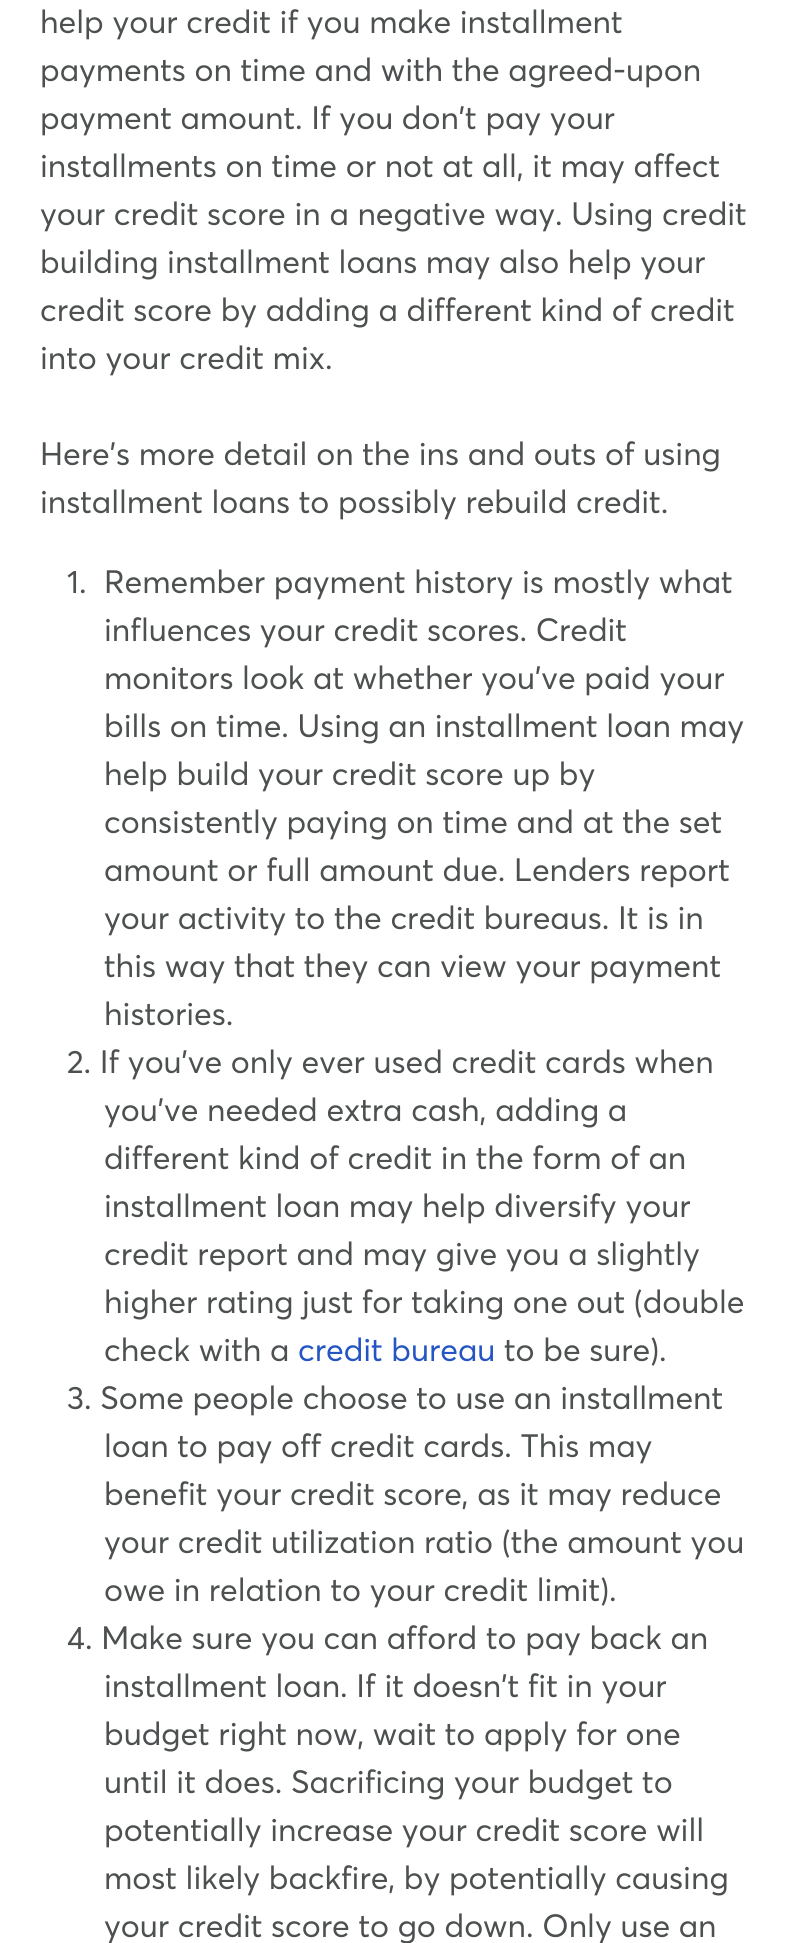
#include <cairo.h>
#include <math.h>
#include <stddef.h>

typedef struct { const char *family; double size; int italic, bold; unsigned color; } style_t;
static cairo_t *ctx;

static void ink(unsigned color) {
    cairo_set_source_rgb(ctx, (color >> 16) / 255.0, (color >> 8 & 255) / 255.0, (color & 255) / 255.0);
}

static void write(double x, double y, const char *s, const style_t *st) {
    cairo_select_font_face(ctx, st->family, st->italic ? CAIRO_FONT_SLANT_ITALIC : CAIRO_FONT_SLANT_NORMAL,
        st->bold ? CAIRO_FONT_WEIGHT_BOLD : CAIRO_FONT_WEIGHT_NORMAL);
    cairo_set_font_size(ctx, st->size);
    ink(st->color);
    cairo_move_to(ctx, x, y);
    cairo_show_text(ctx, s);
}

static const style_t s1 = {"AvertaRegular", 32, 0, 0, 0x4d5051};
static const style_t s2 = {"AvertaRegular", 32, 0, 0, 0x2455c3};

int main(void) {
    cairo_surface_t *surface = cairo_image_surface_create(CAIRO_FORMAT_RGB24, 788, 1943);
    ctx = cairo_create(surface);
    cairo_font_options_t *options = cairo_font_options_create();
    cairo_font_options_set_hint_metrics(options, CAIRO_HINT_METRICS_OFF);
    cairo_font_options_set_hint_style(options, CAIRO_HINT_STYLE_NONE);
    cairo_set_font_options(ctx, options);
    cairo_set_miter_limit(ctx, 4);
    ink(0xffffff);
    cairo_paint(ctx);
    write(40, 33, "help your credit if you make installment", &s1);
    write(40, 81, "payments on time and with the agreed-upon", &s1);
    write(40, 129, "payment amount. If you don't pay your", &s1);
    write(40, 177, "installments on time or not at all, it may affect", &s1);
    write(40, 225, "your credit score in a negative way. Using credit", &s1);
    write(40, 273, "building installment loans may also help your", &s1);
    write(40, 321, "credit score by adding a different kind of credit", &s1);
    write(40, 369, "into your credit mix.", &s1);
    write(40, 465, "Here's more detail on the ins and outs of using", &s1);
    write(40, 513, "installment loans to possibly rebuild credit.", &s1);
    write(67, 593, "1.", &s1);
    write(104, 593, "Remember payment history is mostly what", &s1);
    write(104, 641, "influences your credit scores. Credit", &s1);
    write(104, 689, "monitors look at whether you've paid your", &s1);
    write(104, 737, "bills on time. Using an installment loan may", &s1);
    write(104, 785, "help build your credit score up by", &s1);
    write(104, 833, "consistently paying on time and at the set", &s1);
    write(104, 881, "amount or full amount due. Lenders report", &s1);
    write(104, 929, "your activity to the credit bureaus. It is in", &s1);
    write(104, 977, "this way that they can view your payment", &s1);
    write(104, 1025, "histories.", &s1);
    write(67, 1073, "2. If you've only ever used credit cards when", &s1);
    write(104, 1121, "you've needed extra cash, adding a", &s1);
    write(104, 1169, "different kind of credit in the form of an", &s1);
    write(104, 1217, "installment loan may help diversify your", &s1);
    write(104, 1265, "credit report and may give you a slightly", &s1);
    write(104, 1313, "higher rating just for taking one out (double", &s1);
    write(104, 1361, "check with a", &s1);
    write(298, 1361, "credit bureau", &s2);
    write(504, 1361, "to be sure).", &s1);
    write(67, 1409, "3. Some people choose to use an installment", &s1);
    write(104, 1457, "loan to pay off credit cards. This may", &s1);
    write(104, 1505, "benefit your credit score, as it may reduce", &s1);
    write(104, 1553, "your credit utilization ratio (the amount you", &s1);
    write(104, 1601, "owe in relation to your credit limit).", &s1);
    write(67, 1649, "4. Make sure you can afford to pay back an", &s1);
    write(104, 1697, "installment loan. If it doesn't fit in your", &s1);
    write(104, 1745, "budget right now, wait to apply for one", &s1);
    write(104, 1793, "until it does. Sacrificing your budget to", &s1);
    write(104, 1841, "potentially increase your credit score will", &s1);
    write(104, 1889, "most likely backfire, by potentially causing", &s1);
    write(104, 1937, "your credit score to go down. Only use an", &s1);
    cairo_surface_write_to_png(surface, "screenshot.png");
    cairo_font_options_destroy(options);
    cairo_destroy(ctx);
    cairo_surface_destroy(surface);
    return 0;
}
